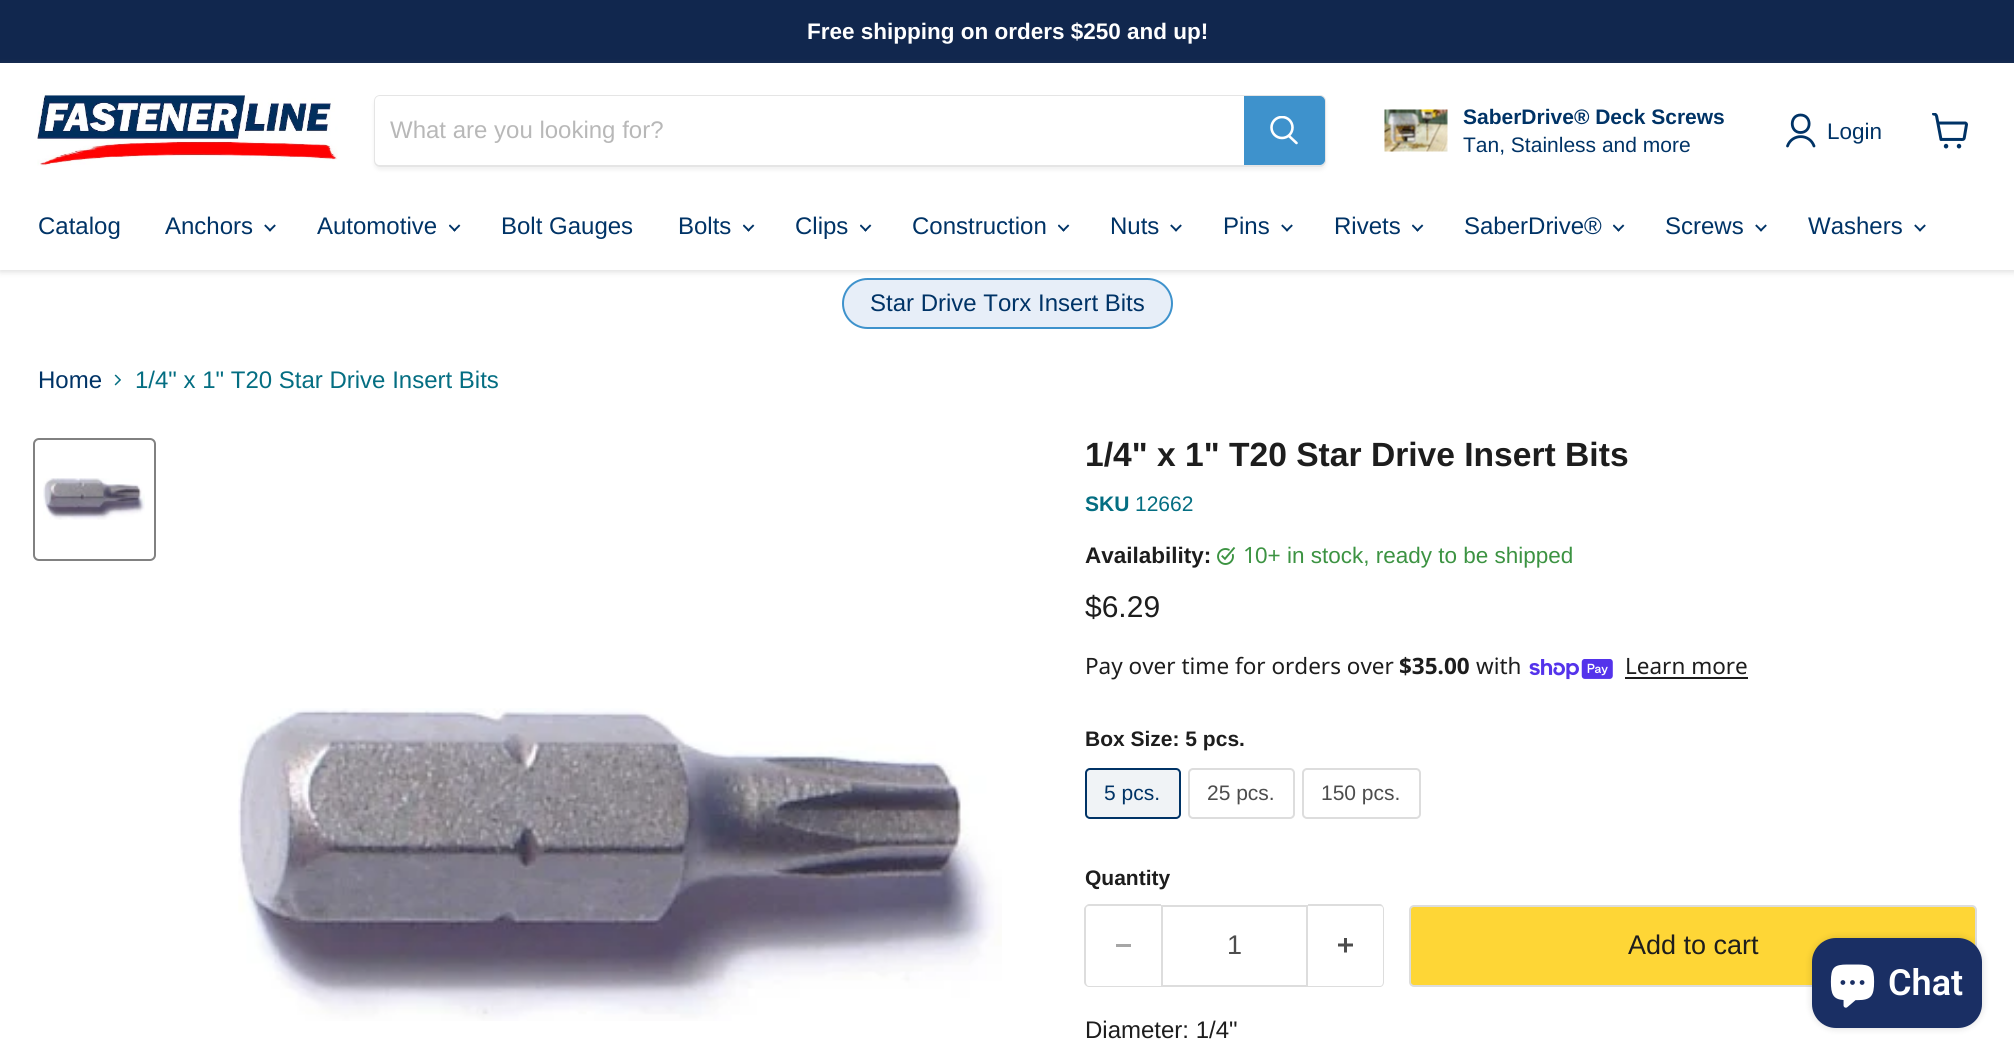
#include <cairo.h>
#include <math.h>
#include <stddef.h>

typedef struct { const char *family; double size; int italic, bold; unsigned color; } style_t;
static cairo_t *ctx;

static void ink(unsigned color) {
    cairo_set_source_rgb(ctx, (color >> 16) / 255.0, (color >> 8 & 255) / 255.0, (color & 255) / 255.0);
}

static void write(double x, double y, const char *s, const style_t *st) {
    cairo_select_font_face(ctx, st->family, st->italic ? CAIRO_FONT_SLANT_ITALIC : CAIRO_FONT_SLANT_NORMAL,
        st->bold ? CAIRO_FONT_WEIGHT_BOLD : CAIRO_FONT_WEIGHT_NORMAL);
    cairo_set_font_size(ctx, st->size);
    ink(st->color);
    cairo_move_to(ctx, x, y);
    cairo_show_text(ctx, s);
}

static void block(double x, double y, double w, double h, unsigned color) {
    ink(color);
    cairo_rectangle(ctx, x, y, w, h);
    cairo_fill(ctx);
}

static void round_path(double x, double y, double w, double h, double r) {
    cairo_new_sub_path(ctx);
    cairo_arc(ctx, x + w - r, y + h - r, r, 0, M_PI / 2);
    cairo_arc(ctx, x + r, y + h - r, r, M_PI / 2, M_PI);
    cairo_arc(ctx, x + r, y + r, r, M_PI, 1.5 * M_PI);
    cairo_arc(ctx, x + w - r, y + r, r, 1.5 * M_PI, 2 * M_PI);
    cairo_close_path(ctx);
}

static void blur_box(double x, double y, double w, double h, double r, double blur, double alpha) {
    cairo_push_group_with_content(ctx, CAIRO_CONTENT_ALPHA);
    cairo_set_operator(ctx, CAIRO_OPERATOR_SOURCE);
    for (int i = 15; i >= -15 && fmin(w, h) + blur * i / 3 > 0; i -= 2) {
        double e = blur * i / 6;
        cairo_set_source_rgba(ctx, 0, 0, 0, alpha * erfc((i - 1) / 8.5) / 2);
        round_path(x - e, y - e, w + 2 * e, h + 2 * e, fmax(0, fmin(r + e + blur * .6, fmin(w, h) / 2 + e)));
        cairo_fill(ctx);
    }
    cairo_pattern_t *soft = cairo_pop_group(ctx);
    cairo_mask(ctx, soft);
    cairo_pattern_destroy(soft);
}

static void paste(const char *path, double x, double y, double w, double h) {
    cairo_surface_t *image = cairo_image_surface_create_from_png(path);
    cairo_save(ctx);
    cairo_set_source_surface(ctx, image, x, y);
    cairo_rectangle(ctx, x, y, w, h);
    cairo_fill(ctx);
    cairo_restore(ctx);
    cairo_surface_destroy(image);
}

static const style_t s1 = {"Liberation Sans", 22.5, 0, 1, 0xffffff};
static const style_t s2 = {"Liberation Sans", 24, 0, 0, 0xb8b8b8};
static const style_t s3 = {"Liberation Sans", 21, 0, 1, 0x003366};
static const style_t s4 = {"Liberation Sans", 21, 0, 0, 0x003366};
static const style_t s5 = {"Liberation Sans", 22.5, 0, 0, 0x003366};
static const style_t s6 = {"Liberation Sans", 24, 0, 0, 0x003366};
static const style_t s7 = {"Liberation Sans", 24, 0, 0, 0x046e82};
static const style_t s8 = {"Liberation Sans", 33.6, 0, 1, 0x1d1d1d};
static const style_t s9 = {"Liberation Sans", 21, 0, 1, 0x046e82};
static const style_t s10 = {"Liberation Sans", 21, 0, 0, 0x046e82};
static const style_t s11 = {"Liberation Sans", 22.5, 0, 1, 0x1d1d1d};
static const style_t s12 = {"Noto Sans", 22.5, 0, 0, 0x3c9342};
static const style_t s13 = {"Liberation Sans", 22.5, 0, 0, 0x3c9342};
static const style_t s14 = {"Liberation Sans", 30, 0, 0, 0x1d1d1d};
static const style_t s15 = {"Noto Sans", 22.5, 0, 0, 0x1d1d1d};
static const style_t s16 = {"Noto Sans", 22.5, 0, 1, 0x1d1d1d};
static const style_t s17 = {"Liberation Sans", 21, 0, 1, 0x1d1d1d};
static const style_t s18 = {"Liberation Sans", 21, 0, 0, 0x4d4d4d};
static const style_t s19 = {"Liberation Sans", 27, 0, 0, 0x4d4d4d};
static const style_t s20 = {"Liberation Sans", 27, 0, 0, 0x1d1d1d};
static const style_t s21 = {"Liberation Sans", 24, 0, 0, 0x1d1d1d};
static const style_t s22 = {"Roboto SemiBold", 36, 0, 0, 0xffffff};

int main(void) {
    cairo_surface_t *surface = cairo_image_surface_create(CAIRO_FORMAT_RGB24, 2014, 1059);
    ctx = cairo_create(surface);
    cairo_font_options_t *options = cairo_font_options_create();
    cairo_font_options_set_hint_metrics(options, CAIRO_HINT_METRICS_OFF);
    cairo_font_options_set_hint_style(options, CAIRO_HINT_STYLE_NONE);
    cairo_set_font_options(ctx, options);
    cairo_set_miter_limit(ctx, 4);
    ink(0xffffff);
    cairo_paint(ctx);
    block(0, 0, 2014, 63, 0x11274e);
    write(807, 39, "Free shipping on orders $250 and up!", &s1);
    ink(0xe7eef8);
    round_path(843, 279, 329, 49, 24.5);
    cairo_fill_preserve(ctx);
    ink(0x3e92cc);
    cairo_stroke(ctx);
    cairo_save(ctx);
    cairo_set_fill_rule(ctx, CAIRO_FILL_RULE_EVEN_ODD);
    cairo_new_path(ctx);
    cairo_move_to(ctx, 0, 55);
    cairo_line_to(ctx, 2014, 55);
    cairo_line_to(ctx, 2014, 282);
    cairo_line_to(ctx, 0, 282);
    cairo_close_path(ctx);
    cairo_move_to(ctx, 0, 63);
    cairo_line_to(ctx, 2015, 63);
    cairo_line_to(ctx, 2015, 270);
    cairo_line_to(ctx, 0, 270);
    cairo_close_path(ctx);
    cairo_clip(ctx);
    ink(0x808080);
    blur_box(0, 65, 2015, 207, 0, 3, 0.25);
    cairo_restore(ctx);
    paste("pic1.png", 37, 93, 301, 73);
    cairo_save(ctx);
    cairo_set_fill_rule(ctx, CAIRO_FILL_RULE_EVEN_ODD);
    cairo_new_path(ctx);
    cairo_move_to(ctx, 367, 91);
    cairo_line_to(ctx, 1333, 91);
    cairo_line_to(ctx, 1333, 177);
    cairo_line_to(ctx, 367, 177);
    cairo_close_path(ctx);
    cairo_move_to(ctx, 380, 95);
    cairo_line_to(ctx, 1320, 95);
    cairo_curve_to(ctx, 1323.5, 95, 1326, 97.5, 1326, 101);
    cairo_line_to(ctx, 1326, 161);
    cairo_curve_to(ctx, 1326, 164.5, 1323.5, 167, 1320, 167);
    cairo_line_to(ctx, 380, 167);
    cairo_curve_to(ctx, 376.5, 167, 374, 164.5, 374, 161);
    cairo_line_to(ctx, 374, 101);
    cairo_curve_to(ctx, 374, 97.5, 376.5, 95, 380, 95);
    cairo_close_path(ctx);
    cairo_clip(ctx);
    ink(0x808080);
    blur_box(374, 98, 952, 72, 6, 2, 0.11);
    cairo_restore(ctx);
    round_path(375, 96, 950, 70, 5);
    cairo_set_source_rgba(ctx, 0.502, 0.502, 0.502, 0.2);
    cairo_stroke(ctx);
    ink(0xffffff);
    cairo_new_path(ctx);
    cairo_move_to(ctx, 380, 96);
    cairo_line_to(ctx, 1244, 96);
    cairo_line_to(ctx, 1244, 165);
    cairo_line_to(ctx, 380, 165);
    cairo_curve_to(ctx, 377, 165, 375, 163, 375, 160);
    cairo_line_to(ctx, 375, 101);
    cairo_curve_to(ctx, 375, 98, 377, 96, 380, 96);
    cairo_close_path(ctx);
    cairo_fill(ctx);
    write(390, 138, "What are you looking for?", &s2);
    ink(0x3e92cc);
    cairo_new_path(ctx);
    cairo_move_to(ctx, 1245, 97);
    cairo_line_to(ctx, 1320, 97);
    cairo_curve_to(ctx, 1322, 97, 1324, 99, 1324, 101);
    cairo_line_to(ctx, 1324, 160);
    cairo_curve_to(ctx, 1324, 162, 1322, 164, 1320, 164);
    cairo_line_to(ctx, 1245, 164);
    cairo_close_path(ctx);
    cairo_fill_preserve(ctx);
    cairo_stroke(ctx);
    cairo_new_path(ctx);
    cairo_move_to(ctx, 1296.5, 143);
    cairo_line_to(ctx, 1289, 136);
    ink(0xffffff);
    cairo_set_line_width(ctx, 2.6);
    cairo_set_line_cap(ctx, CAIRO_LINE_CAP_ROUND);
    cairo_stroke(ctx);
    cairo_save(ctx);
    cairo_rectangle(ctx, 1269, 116, 30, 31);
    cairo_clip(ctx);
    cairo_arc(ctx, 1282, 127.5, 10.5, 0, 2 * M_PI);
    cairo_set_line_cap(ctx, CAIRO_LINE_CAP_BUTT);
    cairo_stroke(ctx);
    cairo_restore(ctx);
    paste("pic2.png", 1384, 109, 64, 43);
    write(1463, 124, "SaberDrive® Deck Screws", &s3);
    write(1463, 152, "Tan, Stainless and more", &s4);
    cairo_new_path(ctx);
    cairo_move_to(ctx, 1800.5, 132.5);
    cairo_curve_to(ctx, 1812, 132.5, 1812, 115, 1800.5, 115);
    cairo_curve_to(ctx, 1789.5, 115, 1789.5, 132.5, 1800.5, 132.5);
    cairo_close_path(ctx);
    cairo_move_to(ctx, 1814, 146);
    cairo_curve_to(ctx, 1809.5, 133.5, 1792, 133.5, 1787.5, 146);
    cairo_set_line_width(ctx, 2.8);
    cairo_set_line_join(ctx, CAIRO_LINE_JOIN_ROUND);
    cairo_stroke(ctx);
    write(1827, 139, "Login", &s5);
    paste("pic3.png", 1932, 113, 36, 36);
    write(38, 234, "Catalog", &s6);
    write(165, 234, "Anchors", &s6);
    paste("pic4.png", 264, 224, 12, 8);
    write(317, 234, "Automotive", &s6);
    paste("pic5.png", 449, 224, 12, 8);
    write(501, 234, "Bolt Gauges", &s6);
    write(678, 234, "Bolts", &s6);
    paste("pic5.png", 743, 224, 12, 8);
    write(795, 234, "Clips", &s6);
    paste("pic5.png", 860, 224, 12, 8);
    write(912, 234, "Construction", &s6);
    paste("pic5.png", 1058, 224, 12, 8);
    write(1110, 234, "Nuts", &s6);
    paste("pic4.png", 1170, 224, 12, 8);
    write(1223, 234, "Pins", &s6);
    paste("pic4.png", 1281, 224, 12, 8);
    write(1334, 234, "Rivets", &s6);
    paste("pic5.png", 1412, 224, 12, 8);
    write(1464, 234, "SaberDrive®", &s6);
    paste("pic5.png", 1613, 224, 12, 8);
    write(1665, 234, "Screws", &s6);
    paste("pic4.png", 1755, 224, 12, 8);
    write(1808, 234, "Washers", &s6);
    paste("pic4.png", 1914, 224, 12, 8);
    write(870, 311, "Star Drive Torx Insert Bits", &s6);
    write(38, 388, "Home", &s6);
    paste("pic6.png", 114, 374, 7, 12);
    write(135, 388, "1/4\" x 1\" T20 Star Drive Insert Bits", &s7);
    round_path(34, 439, 121, 121, 5);
    ink(0x818181);
    cairo_set_line_width(ctx, 2);
    cairo_set_line_cap(ctx, CAIRO_LINE_CAP_BUTT);
    cairo_set_line_join(ctx, CAIRO_LINE_JOIN_MITER);
    cairo_stroke(ctx);
    paste("pic7.png", 43, 478, 102, 42);
    paste("pic8.png", 238, 708, 764, 313);
    write(1085, 466, "1/4\" x 1\" T20 Star Drive Insert Bits", &s8);
    write(1085, 511, "SKU", &s9);
    write(1135, 511, "12662", &s10);
    write(1085, 563, "Availability:", &s11);
    paste("pic9.png", 1217, 547, 19, 18);
    write(1243, 563, "1", &s12);
    write(1255, 563, "0+ in stock, ready to be shipped", &s13);
    write(1085, 617, "$6.29", &s14);
    write(1085, 674, "Pay over time for orders over", &s15);
    write(1399, 674, "$35.00", &s16);
    write(1476, 674, "with", &s15);
    paste("pic10.png", 1529, 659, 84, 21);
    write(1625, 674, "Learn more", &s15);
    block(1625, 677, 123, 2, 0x1d1d1d);
    write(1085, 746, "Box Size: 5 pcs.", &s17);
    ink(0xf0f3f6);
    round_path(1086, 769, 94, 49, 4);
    cairo_fill_preserve(ctx);
    ink(0x003366);
    cairo_stroke(ctx);
    write(1104, 800, "5 pcs.", &s4);
    round_path(1189, 769, 105, 49, 4);
    ink(0xdddddd);
    cairo_stroke(ctx);
    write(1207, 800, "25 pcs.", &s18);
    round_path(1303, 769, 117, 49, 4);
    ink(0xdddddd);
    cairo_stroke(ctx);
    write(1321, 800, "150 pcs.", &s18);
    write(1085, 885, "Quantity", &s17);
    ink(0xdddddd);
    cairo_set_fill_rule(ctx, CAIRO_FILL_RULE_EVEN_ODD);
    cairo_new_path(ctx);
    cairo_move_to(ctx, 1089, 904);
    cairo_line_to(ctx, 1161, 904);
    cairo_line_to(ctx, 1161, 987);
    cairo_line_to(ctx, 1089, 987);
    cairo_curve_to(ctx, 1087, 987, 1084, 985, 1084, 982);
    cairo_line_to(ctx, 1084, 909);
    cairo_curve_to(ctx, 1084, 907, 1087, 904, 1089, 904);
    cairo_close_path(ctx);
    cairo_move_to(ctx, 1089, 906);
    cairo_line_to(ctx, 1161, 906);
    cairo_line_to(ctx, 1161, 986);
    cairo_line_to(ctx, 1089, 986);
    cairo_curve_to(ctx, 1087, 986, 1086, 984, 1086, 982);
    cairo_line_to(ctx, 1086, 909);
    cairo_curve_to(ctx, 1086, 907, 1087, 906, 1089, 906);
    cairo_close_path(ctx);
    cairo_fill(ctx);
    block(1116, 944, 15, 3, 0xa6a6a6);
    cairo_rectangle(ctx, 1162, 906, 145, 80);
    ink(0xdddddd);
    cairo_stroke(ctx);
    write(1227, 954, "1", &s19);
    ink(0xdddddd);
    cairo_new_path(ctx);
    cairo_move_to(ctx, 1308, 904);
    cairo_line_to(ctx, 1380, 904);
    cairo_curve_to(ctx, 1382, 904, 1384, 907, 1384, 909);
    cairo_line_to(ctx, 1384, 982);
    cairo_curve_to(ctx, 1384, 985, 1382, 987, 1380, 987);
    cairo_line_to(ctx, 1308, 987);
    cairo_close_path(ctx);
    cairo_move_to(ctx, 1308, 906);
    cairo_line_to(ctx, 1380, 906);
    cairo_curve_to(ctx, 1382, 906, 1383, 907, 1383, 909);
    cairo_line_to(ctx, 1383, 982);
    cairo_curve_to(ctx, 1383, 984, 1382, 986, 1380, 986);
    cairo_line_to(ctx, 1308, 986);
    cairo_close_path(ctx);
    cairo_fill(ctx);
    paste("pic11.png", 1338, 938, 15, 15);
    ink(0xfed636);
    round_path(1410, 906, 566, 80, 4);
    cairo_fill_preserve(ctx);
    ink(0xdddddd);
    cairo_stroke(ctx);
    write(1628, 954, "Add to cart", &s20);
    write(1085, 1038, "Diameter: 1/4\"", &s21);
    ink(0x000000);
    blur_box(1812, 938, 170, 90, 24, 4, 0.15);
    ink(0x1a2f64);
    round_path(1812, 938, 170, 90, 24);
    cairo_fill(ctx);
    paste("pic12.png", 1830, 964, 45, 44);
    write(1888, 995, "Chat", &s22);
    cairo_surface_write_to_png(surface, "screenshot.png");
    cairo_font_options_destroy(options);
    cairo_destroy(ctx);
    cairo_surface_destroy(surface);
    return 0;
}
